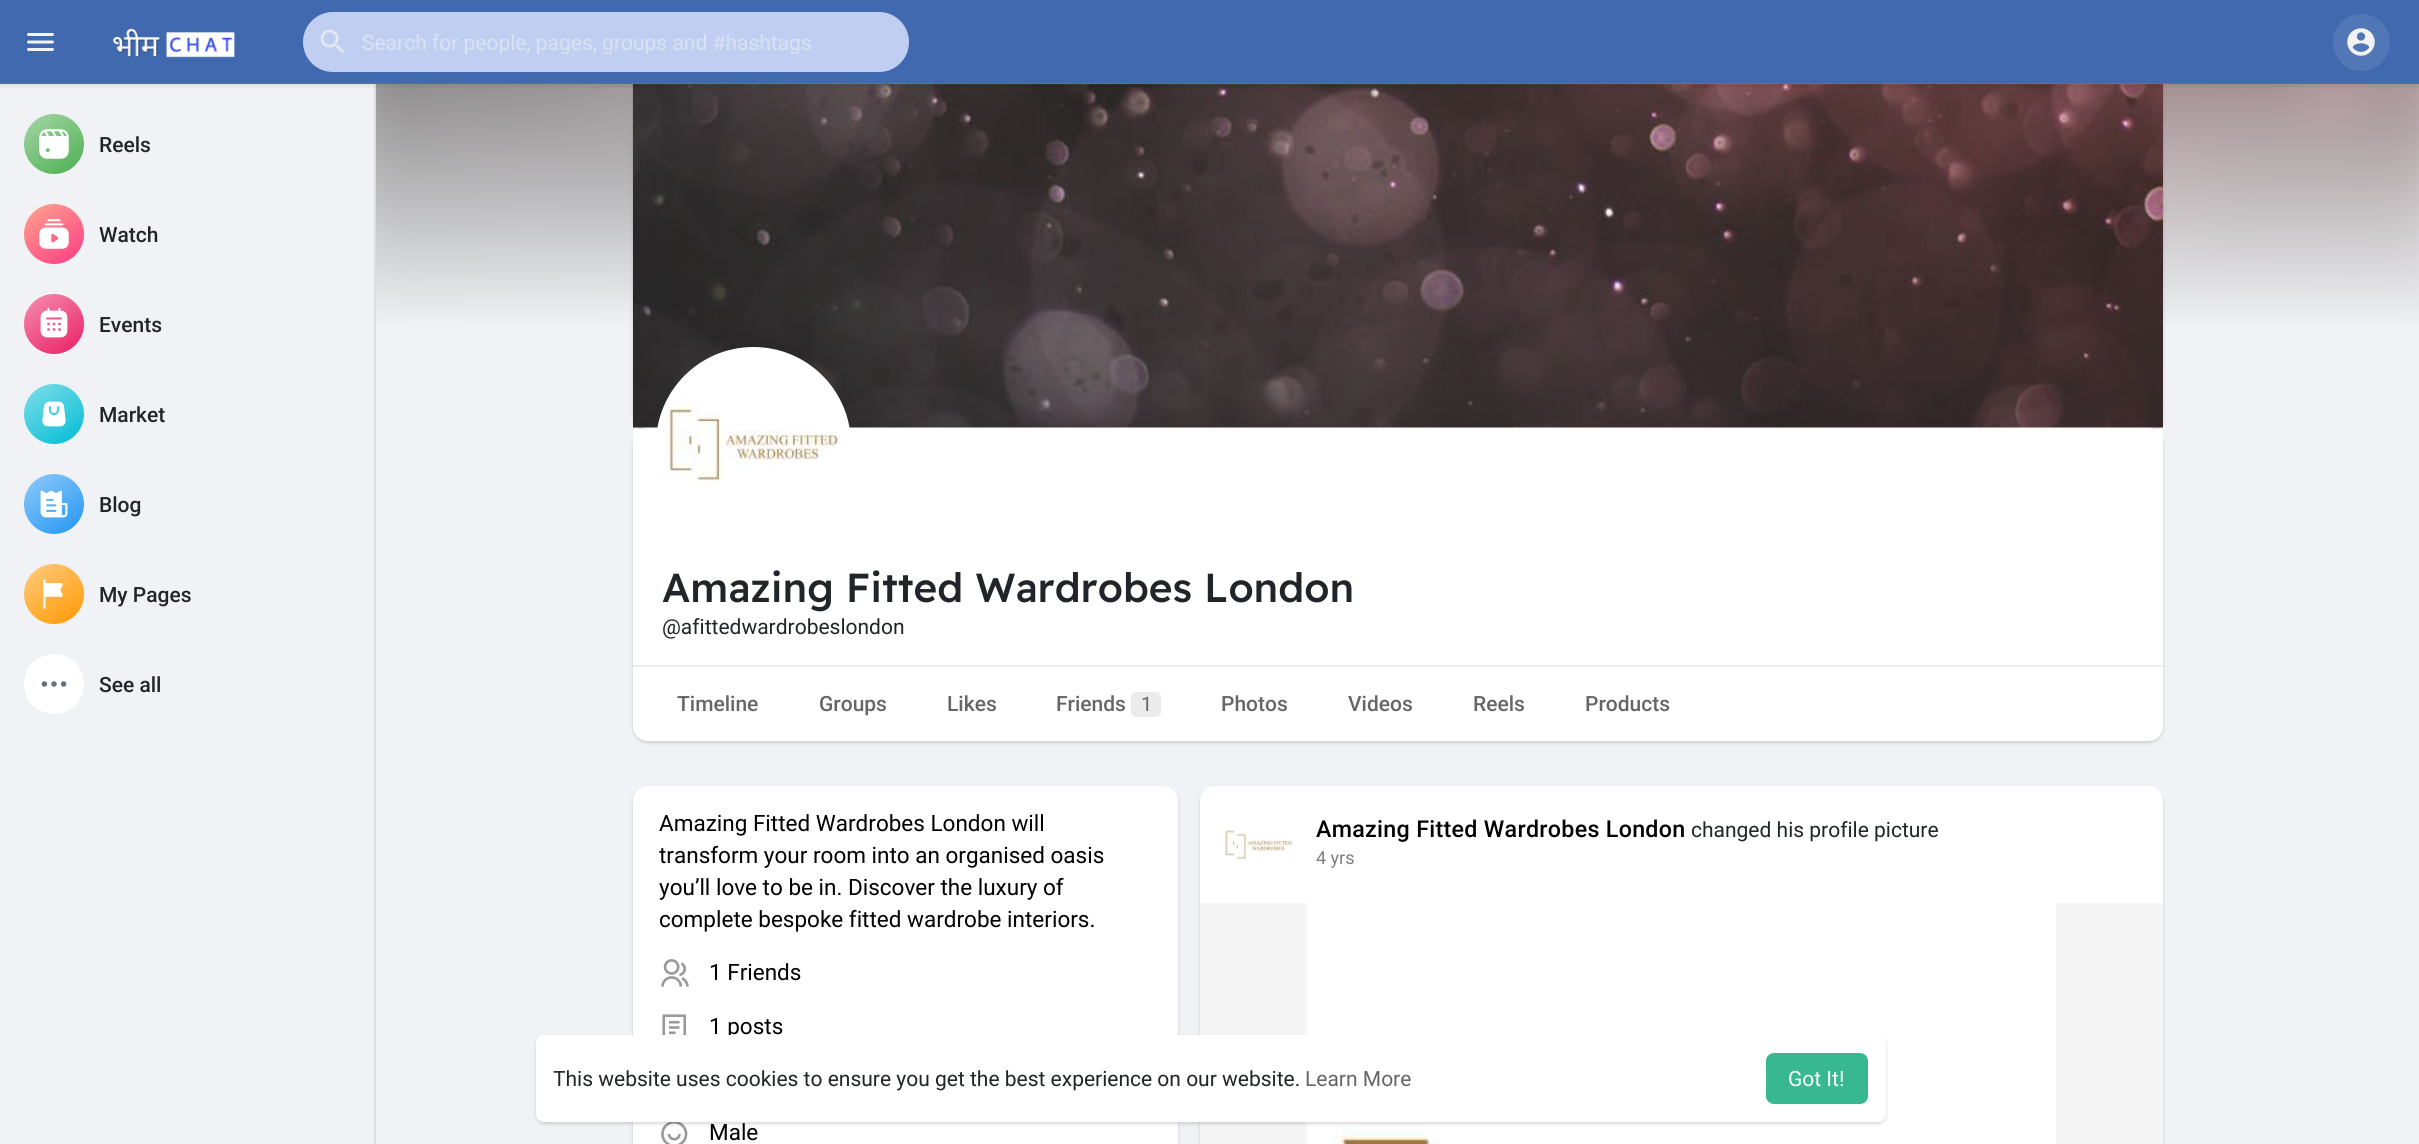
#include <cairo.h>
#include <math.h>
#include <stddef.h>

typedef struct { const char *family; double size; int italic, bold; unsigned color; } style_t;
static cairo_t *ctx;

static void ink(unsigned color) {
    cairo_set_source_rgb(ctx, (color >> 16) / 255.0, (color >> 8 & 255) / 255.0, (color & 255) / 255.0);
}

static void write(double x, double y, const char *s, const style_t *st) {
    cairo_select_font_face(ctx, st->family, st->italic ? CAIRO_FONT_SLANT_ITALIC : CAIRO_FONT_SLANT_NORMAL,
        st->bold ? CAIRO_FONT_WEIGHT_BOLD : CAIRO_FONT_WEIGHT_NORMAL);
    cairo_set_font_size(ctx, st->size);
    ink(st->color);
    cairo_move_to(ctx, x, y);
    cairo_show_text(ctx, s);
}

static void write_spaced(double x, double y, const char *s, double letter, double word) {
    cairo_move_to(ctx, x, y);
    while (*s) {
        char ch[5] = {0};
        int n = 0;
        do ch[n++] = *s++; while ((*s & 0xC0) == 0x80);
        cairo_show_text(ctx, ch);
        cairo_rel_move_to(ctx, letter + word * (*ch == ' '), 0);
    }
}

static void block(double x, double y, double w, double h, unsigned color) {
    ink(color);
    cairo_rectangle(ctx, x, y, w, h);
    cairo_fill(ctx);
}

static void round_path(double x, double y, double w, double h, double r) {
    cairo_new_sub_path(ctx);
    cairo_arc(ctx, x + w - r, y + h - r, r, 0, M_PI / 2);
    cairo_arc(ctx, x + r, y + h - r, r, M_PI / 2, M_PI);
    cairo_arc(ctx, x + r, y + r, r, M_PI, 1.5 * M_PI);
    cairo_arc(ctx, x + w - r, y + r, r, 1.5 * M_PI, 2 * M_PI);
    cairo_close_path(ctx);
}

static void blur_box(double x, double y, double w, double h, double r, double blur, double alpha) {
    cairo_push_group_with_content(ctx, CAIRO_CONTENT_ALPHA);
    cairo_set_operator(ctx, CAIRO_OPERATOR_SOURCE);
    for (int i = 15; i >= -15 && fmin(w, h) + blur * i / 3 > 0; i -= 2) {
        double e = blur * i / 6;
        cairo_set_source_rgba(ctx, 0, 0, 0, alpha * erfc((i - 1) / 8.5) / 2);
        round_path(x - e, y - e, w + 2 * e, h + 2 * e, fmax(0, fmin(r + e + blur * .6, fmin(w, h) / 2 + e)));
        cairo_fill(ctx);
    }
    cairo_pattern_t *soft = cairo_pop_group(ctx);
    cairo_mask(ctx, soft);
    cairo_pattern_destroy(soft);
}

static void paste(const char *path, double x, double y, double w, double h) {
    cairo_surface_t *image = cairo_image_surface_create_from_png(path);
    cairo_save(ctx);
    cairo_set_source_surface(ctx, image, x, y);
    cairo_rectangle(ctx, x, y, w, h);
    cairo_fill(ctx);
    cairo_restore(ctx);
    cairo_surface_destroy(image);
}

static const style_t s1 = {"Roboto", 21, 0, 0, 0xd9e1f2};
static const style_t s2 = {"Roboto Medium", 21, 0, 0, 0x212529};
static const style_t s3 = {"Readex Pro Medium", 40.5, 0, 0, 0x212529};
static const style_t s4 = {"Roboto", 21, 0, 0, 0x212529};
static const style_t s5 = {"Roboto Medium", 21, 0, 0, 0x666666};
static const style_t s6 = {"Roboto", 20, 0, 0, 0x666666};
static const style_t s7 = {"Roboto", 22.5, 0, 0, 0x000000};
static const style_t s8 = {"Roboto", 18, 0, 0, 0x7f7f7f};
static const style_t s9 = {"Roboto", 21, 0, 0, 0x666666};
static const style_t s10 = {"Roboto", 21, 0, 0, 0xffffff};

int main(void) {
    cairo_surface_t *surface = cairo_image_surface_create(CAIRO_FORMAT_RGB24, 2419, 1144);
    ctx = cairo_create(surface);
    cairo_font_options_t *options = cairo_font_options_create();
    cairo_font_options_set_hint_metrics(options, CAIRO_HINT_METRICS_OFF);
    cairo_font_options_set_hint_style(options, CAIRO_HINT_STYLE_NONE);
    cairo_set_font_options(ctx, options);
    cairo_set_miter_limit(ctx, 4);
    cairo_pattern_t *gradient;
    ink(0xf0f2f5);
    cairo_paint(ctx);
    paste("pic14.png", 376, 84, 2043, 242);
    gradient = cairo_pattern_create_linear(1397, -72, 1397, 429);
    cairo_pattern_add_color_stop_rgba(gradient, 0, 1, 1, 1, 0.1);
    cairo_pattern_add_color_stop_rgba(gradient, 0.8, 0.941, 0.949, 0.961, 1);
    cairo_pattern_add_color_stop_rgba(gradient, 1, 0.941, 0.949, 0.961, 1);
    cairo_set_source(ctx, gradient);
    cairo_pattern_destroy(gradient);
    cairo_rectangle(ctx, 376, 84, 2043, 242);
    cairo_fill(ctx);
    ink(0x000000);
    blur_box(633, -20, 1530, 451, 15, 1.5, 0.06);
    blur_box(633, -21, 1530, 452, 15, 2, 0.1);
    ink(0xffffff);
    round_path(633, -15, 1530, 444, 15);
    cairo_fill(ctx);
    block(0, 0, 2419, 84, 0x4069af);
    paste("pic1.png", 27, 33, 27, 18);
    paste("pic2.png", 112, 28, 123, 30);
    ink(0xc0cff1);
    round_path(303, 12, 606, 60, 30);
    cairo_fill(ctx);
    paste("pic3.png", 320, 29, 24, 24);
    cairo_save(ctx);
    cairo_rectangle(ctx, 362, 30, 511, 24);
    cairo_clip(ctx);
    write(362, 50, "Search for people, pages, groups and #hashtags", &s1);
    cairo_restore(ctx);
    block(374, 84, 2, 1060, 0xdcdcdc);
    paste("pic13.png", 633, 84, 1530, 344);
    paste("pic4.png", 0, 83, 2419, 5);
    ink(0x5277b6);
    cairo_arc(ctx, 2361.5, 42.5, 28.5, 0, 2 * M_PI);
    cairo_fill(ctx);
    paste("pic5.png", 2347, 28, 28, 28);
    gradient = cairo_pattern_create_linear(30, 110, 78, 178);
    cairo_pattern_add_color_stop_rgba(gradient, 0, 0.647, 0.839, 0.655, 1);
    cairo_pattern_add_color_stop_rgba(gradient, 1, 0.298, 0.686, 0.314, 1);
    cairo_set_source(ctx, gradient);
    cairo_pattern_destroy(gradient);
    cairo_arc(ctx, 54, 144, 30, 0, 2 * M_PI);
    cairo_fill(ctx);
    paste("pic6.png", 39, 129, 30, 30);
    write(99, 152, "Reels", &s2);
    gradient = cairo_pattern_create_linear(30, 200, 78, 268);
    cairo_pattern_add_color_stop_rgba(gradient, 0, 1, 0.651, 0.553, 1);
    cairo_pattern_add_color_stop_rgba(gradient, 1, 0.992, 0.227, 0.518, 1);
    cairo_set_source(ctx, gradient);
    cairo_pattern_destroy(gradient);
    cairo_new_path(ctx);
    cairo_arc(ctx, 54, 234, 30, 0, 2 * M_PI);
    cairo_fill(ctx);
    paste("pic7.png", 39, 219, 30, 30);
    write(99, 242, "Watch", &s2);
    gradient = cairo_pattern_create_linear(30, 290, 78, 358);
    cairo_pattern_add_color_stop_rgba(gradient, 0, 0.957, 0.561, 0.694, 1);
    cairo_pattern_add_color_stop_rgba(gradient, 1, 0.914, 0.118, 0.388, 1);
    cairo_set_source(ctx, gradient);
    cairo_pattern_destroy(gradient);
    cairo_new_path(ctx);
    cairo_arc(ctx, 54, 324, 30, 0, 2 * M_PI);
    cairo_fill(ctx);
    paste("pic8.png", 40, 307, 28, 31);
    write(99, 332, "Events", &s2);
    gradient = cairo_pattern_create_linear(30, 380, 78, 448);
    cairo_pattern_add_color_stop_rgba(gradient, 0, 0.502, 0.871, 0.918, 1);
    cairo_pattern_add_color_stop_rgba(gradient, 1, 0, 0.737, 0.831, 1);
    cairo_set_source(ctx, gradient);
    cairo_pattern_destroy(gradient);
    cairo_new_path(ctx);
    cairo_arc(ctx, 54, 414, 30, 0, 2 * M_PI);
    cairo_fill(ctx);
    paste("pic9.png", 42, 401, 24, 26);
    write(99, 422, "Market", &s2);
    gradient = cairo_pattern_create_linear(30, 470, 78, 538);
    cairo_pattern_add_color_stop_rgba(gradient, 0, 0.565, 0.792, 0.976, 1);
    cairo_pattern_add_color_stop_rgba(gradient, 1, 0.129, 0.588, 0.953, 1);
    cairo_set_source(ctx, gradient);
    cairo_pattern_destroy(gradient);
    cairo_new_path(ctx);
    cairo_arc(ctx, 54, 504, 30, 0, 2 * M_PI);
    cairo_fill(ctx);
    paste("pic10.png", 40, 490, 28, 28);
    write(99, 512, "Blog", &s2);
    gradient = cairo_pattern_create_linear(30, 560, 78, 628);
    cairo_pattern_add_color_stop_rgba(gradient, 0, 1, 0.8, 0.502, 1);
    cairo_pattern_add_color_stop_rgba(gradient, 1, 1, 0.596, 0, 1);
    cairo_set_source(ctx, gradient);
    cairo_pattern_destroy(gradient);
    cairo_new_path(ctx);
    cairo_arc(ctx, 54, 594, 30, 0, 2 * M_PI);
    cairo_fill(ctx);
    paste("pic11.png", 43, 579, 20, 30);
    write(99, 602, "My Pages", &s2);
    ink(0xffffff);
    cairo_new_path(ctx);
    cairo_arc(ctx, 54, 684, 30, 0, 2 * M_PI);
    cairo_fill(ctx);
    paste("pic12.png", 41, 681, 26, 6);
    write(99, 692, "See all", &s2);
    ink(0x000000);
    blur_box(633, 431, 1530, 312, 15, 1.5, 0.06);
    blur_box(633, 431, 1530, 312, 15, 2, 0.1);
    ink(0xffffff);
    cairo_new_path(ctx);
    cairo_move_to(ctx, 633, 429);
    cairo_line_to(ctx, 2163, 429);
    cairo_line_to(ctx, 2163, 726);
    cairo_curve_to(ctx, 2163, 734.5, 2156.5, 741, 2148, 741);
    cairo_line_to(ctx, 648, 741);
    cairo_curve_to(ctx, 639.5, 741, 633, 734.5, 633, 726);
    cairo_close_path(ctx);
    cairo_fill(ctx);
    cairo_arc(ctx, 753.5, 444.5, 97.5, 0, 2 * M_PI);
    cairo_fill(ctx);
    paste("pic15.png", 662, 392, 176, 97);
    write(662, 602, "Amazing Fitted Wardrobes London", &s3);
    write(662, 634, "@afittedwardrobeslondon", &s4);
    block(633, 665, 1530, 2, 0xeeeeee);
    write(677, 711, "Timeline", &s5);
    write(819, 711, "Groups", &s5);
    write(947, 711, "Likes", &s5);
    write(1056, 711, "Friends", &s5);
    ink(0xebebeb);
    round_path(1131, 692, 30, 25, 5);
    cairo_fill(ctx);
    write(1141, 711, "1", &s6);
    write(1221, 711, "Photos", &s5);
    write(1348, 711, "Videos", &s5);
    write(1473, 711, "Reels", &s5);
    write(1585, 711, "Products", &s5);
    ink(0x000000);
    blur_box(633, 788, 545, 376, 15, 1.5, 0.06);
    blur_box(633, 788, 545, 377, 15, 2, 0.1);
    ink(0xffffff);
    round_path(633, 786, 545, 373, 15);
    cairo_fill(ctx);
    write(659, 831, "Amazing Fitted Wardrobes London will", &s7);
    write(659, 863, "transform your room into an organised oasis", &s7);
    write(659, 895, "you’ll love to be in. Discover the luxury of", &s7);
    write(659, 927, "complete bespoke fitted wardrobe interiors.", &s7);
    paste("pic16.png", 661, 959, 28, 28);
    write(709, 980, "1 Friends", &s7);
    paste("pic17.png", 662, 1014, 25, 21);
    write(709, 1034, "1 posts", &s7);
    paste("pic18.png", 661, 1122, 27, 22);
    write(709, 1140, "Male", &s7);
    ink(0x000000);
    blur_box(1200, 788, 963, 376, 15, 1.5, 0.06);
    blur_box(1200, 788, 963, 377, 15, 2, 0.1);
    ink(0xffffff);
    round_path(1200, 786, 963, 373, 15);
    cairo_fill(ctx);
    paste("pic19.png", 1223, 824, 69, 36);
    cairo_select_font_face(ctx, "Roboto Medium", CAIRO_FONT_SLANT_NORMAL, CAIRO_FONT_WEIGHT_NORMAL);
    cairo_set_font_size(ctx, 23.25);
    ink(0x000000);
    write_spaced(1316, 837, "Amazing Fitted Wardrobes London", 0.3, 0);
    write(1691, 837, "changed his profile picture", &s4);
    write(1316, 864, "4 yrs", &s8);
    block(1200, 903, 963, 241, 0xf5f5f5);
    paste("pic20.png", 1306, 903, 751, 241);
    ink(0x000000);
    blur_box(536, 1037, 1350, 87, 8, 1.5, 0.06);
    blur_box(536, 1037, 1350, 87, 8, 2, 0.1);
    ink(0xffffff);
    round_path(536, 1035, 1350, 87, 8);
    cairo_fill(ctx);
    write(553, 1086, "This website uses cookies to ensure you get the best experience on our website.", &s4);
    write(1305, 1086, "Learn More", &s9);
    ink(0x37b891);
    round_path(1766, 1053, 102, 51, 8);
    cairo_fill(ctx);
    write(1788, 1086, "Got It!", &s10);
    cairo_surface_write_to_png(surface, "screenshot.png");
    cairo_font_options_destroy(options);
    cairo_destroy(ctx);
    cairo_surface_destroy(surface);
    return 0;
}
